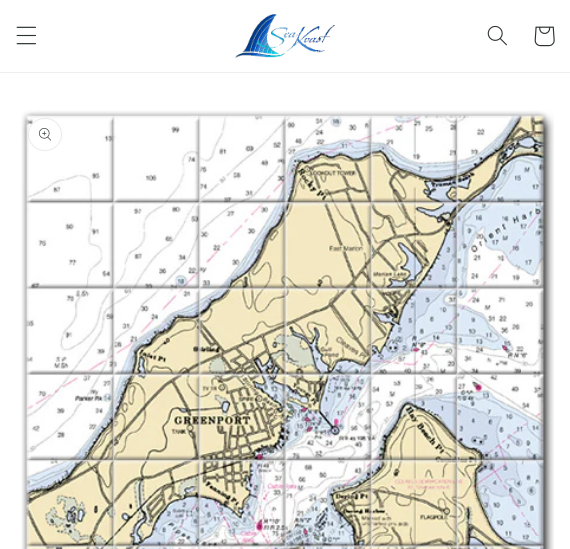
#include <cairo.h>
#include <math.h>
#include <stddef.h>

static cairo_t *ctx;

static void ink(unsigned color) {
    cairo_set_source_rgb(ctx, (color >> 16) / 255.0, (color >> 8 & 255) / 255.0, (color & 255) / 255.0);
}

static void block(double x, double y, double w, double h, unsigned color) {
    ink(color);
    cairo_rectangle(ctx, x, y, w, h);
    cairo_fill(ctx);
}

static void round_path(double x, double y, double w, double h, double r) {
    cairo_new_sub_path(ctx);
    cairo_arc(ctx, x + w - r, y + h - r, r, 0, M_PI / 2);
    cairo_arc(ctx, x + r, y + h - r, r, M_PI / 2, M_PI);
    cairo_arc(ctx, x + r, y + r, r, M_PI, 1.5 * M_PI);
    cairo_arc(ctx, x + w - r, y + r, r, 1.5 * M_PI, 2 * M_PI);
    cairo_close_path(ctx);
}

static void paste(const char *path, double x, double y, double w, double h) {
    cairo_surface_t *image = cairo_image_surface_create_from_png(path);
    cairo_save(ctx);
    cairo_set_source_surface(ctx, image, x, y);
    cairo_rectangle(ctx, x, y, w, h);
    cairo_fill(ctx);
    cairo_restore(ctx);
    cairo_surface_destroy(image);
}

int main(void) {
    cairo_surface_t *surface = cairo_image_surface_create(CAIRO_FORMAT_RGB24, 570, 549);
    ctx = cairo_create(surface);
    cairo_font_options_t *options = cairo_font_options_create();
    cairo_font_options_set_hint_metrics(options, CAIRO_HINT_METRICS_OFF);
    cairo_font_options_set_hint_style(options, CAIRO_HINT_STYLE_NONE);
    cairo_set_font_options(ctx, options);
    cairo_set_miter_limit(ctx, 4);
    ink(0xffffff);
    cairo_paint(ctx);
    block(0, 72, 570, 1, 0xeeefee);
    paste("pic1.png", 16, 26, 20, 19);
    paste("pic2.png", 235, 14, 100, 44);
    paste("pic3.png", 487, 25, 20, 21);
    paste("pic4.png", 534, 26, 21, 21);
    paste("pic5.png", 21, 110, 533, 439);
    ink(0xffffff);
    round_path(28, 118, 34, 33, 16.5);
    cairo_fill(ctx);
    round_path(28.5, 118.5, 33, 32, 16);
    cairo_set_source_rgba(ctx, 0.173, 0.2, 0.184, 0.1);
    cairo_set_line_width(ctx, 1);
    cairo_stroke(ctx);
    paste("pic6.png", 39, 128, 12, 13);
    cairo_surface_write_to_png(surface, "screenshot.png");
    cairo_font_options_destroy(options);
    cairo_destroy(ctx);
    cairo_surface_destroy(surface);
    return 0;
}
